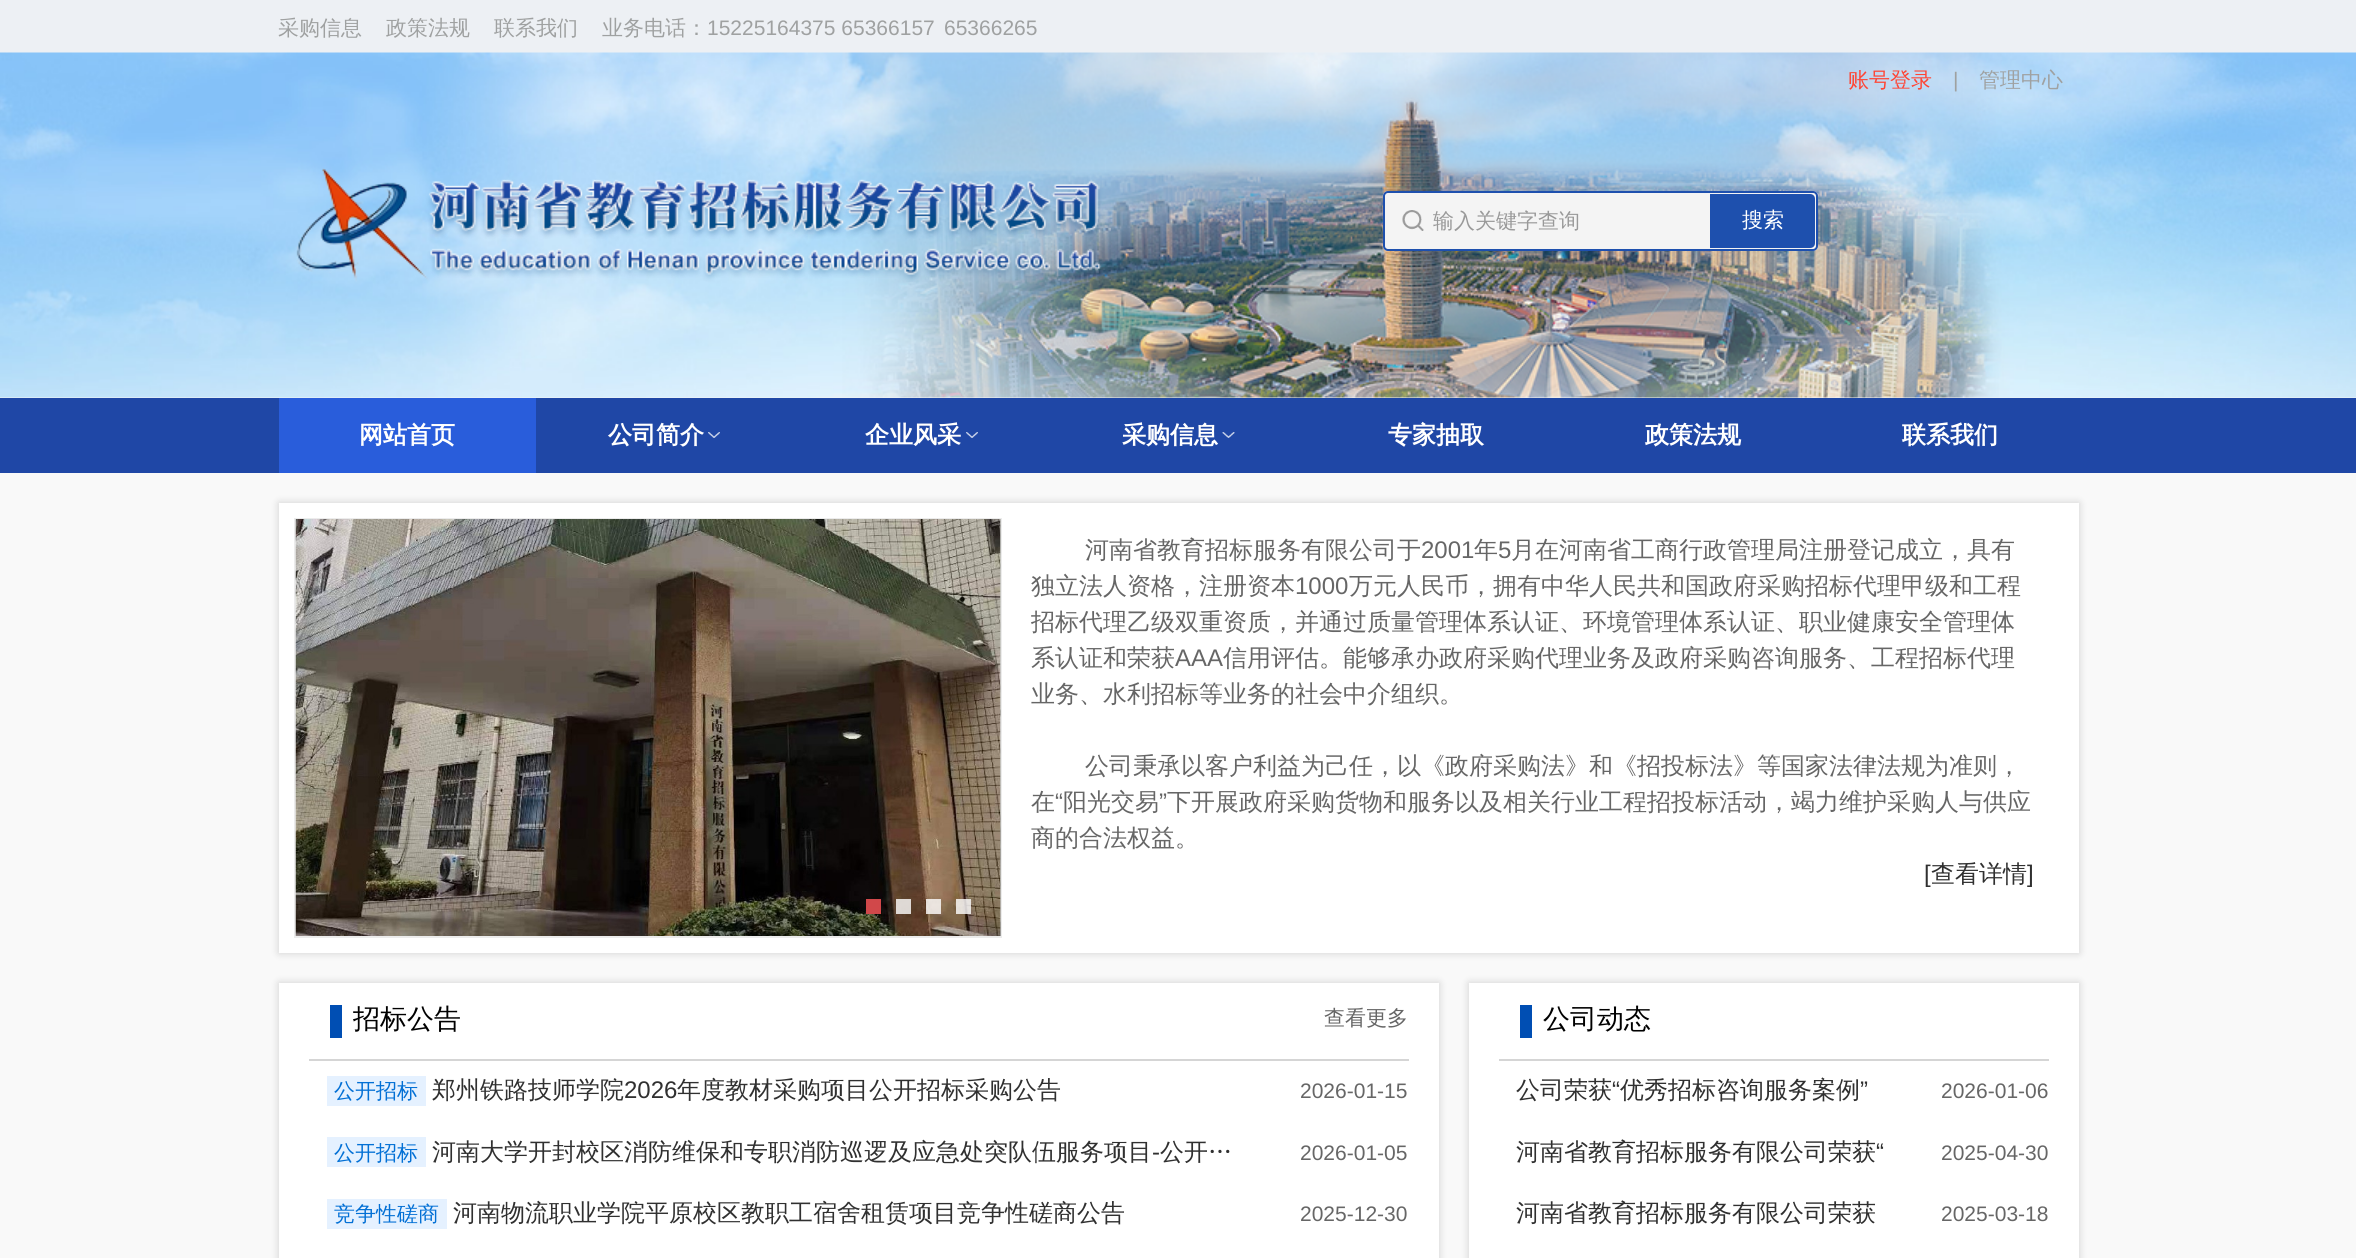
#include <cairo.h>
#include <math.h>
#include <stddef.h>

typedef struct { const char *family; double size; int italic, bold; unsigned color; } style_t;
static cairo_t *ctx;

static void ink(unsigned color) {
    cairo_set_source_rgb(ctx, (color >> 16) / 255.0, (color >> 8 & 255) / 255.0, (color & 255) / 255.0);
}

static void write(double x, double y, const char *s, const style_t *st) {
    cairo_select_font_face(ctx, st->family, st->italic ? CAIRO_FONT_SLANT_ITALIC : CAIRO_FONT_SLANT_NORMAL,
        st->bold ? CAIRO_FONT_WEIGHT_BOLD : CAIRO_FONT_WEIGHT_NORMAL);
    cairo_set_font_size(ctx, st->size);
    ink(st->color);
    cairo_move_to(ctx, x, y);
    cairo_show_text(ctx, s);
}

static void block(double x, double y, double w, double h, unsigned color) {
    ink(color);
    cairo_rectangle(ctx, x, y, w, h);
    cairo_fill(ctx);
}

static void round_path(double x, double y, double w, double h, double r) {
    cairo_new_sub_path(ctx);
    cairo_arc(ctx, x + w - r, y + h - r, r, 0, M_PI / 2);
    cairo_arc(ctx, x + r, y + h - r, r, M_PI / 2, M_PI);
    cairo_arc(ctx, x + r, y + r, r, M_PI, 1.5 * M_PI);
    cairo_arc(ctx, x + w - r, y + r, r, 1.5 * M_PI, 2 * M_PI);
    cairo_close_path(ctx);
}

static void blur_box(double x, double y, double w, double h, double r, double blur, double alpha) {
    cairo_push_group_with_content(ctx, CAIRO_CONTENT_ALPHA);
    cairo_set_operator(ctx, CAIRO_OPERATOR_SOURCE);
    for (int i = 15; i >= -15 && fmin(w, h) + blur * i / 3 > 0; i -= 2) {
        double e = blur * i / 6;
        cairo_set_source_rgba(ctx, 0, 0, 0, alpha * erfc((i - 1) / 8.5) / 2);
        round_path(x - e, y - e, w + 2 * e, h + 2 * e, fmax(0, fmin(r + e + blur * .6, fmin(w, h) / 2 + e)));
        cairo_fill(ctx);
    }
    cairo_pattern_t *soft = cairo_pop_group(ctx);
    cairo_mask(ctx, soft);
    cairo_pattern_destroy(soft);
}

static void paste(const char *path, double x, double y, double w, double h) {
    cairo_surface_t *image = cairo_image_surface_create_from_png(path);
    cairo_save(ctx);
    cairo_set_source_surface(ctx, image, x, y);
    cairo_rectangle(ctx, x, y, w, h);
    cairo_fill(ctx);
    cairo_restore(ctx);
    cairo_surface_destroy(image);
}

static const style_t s1 = {"WenQuanYi Zen Hei Medium", 21, 0, 0, 0x9fa1a1};
static const style_t s2 = {"Liberation Sans", 21, 0, 0, 0x9fa1a1};
static const style_t s3 = {"WenQuanYi Zen Hei Medium", 21, 0, 0, 0xff4433};
static const style_t s4 = {"WenQuanYi Zen Hei Medium", 21, 0, 0, 0x999999};
static const style_t s5 = {"WenQuanYi Zen Hei Medium", 21, 0, 0, 0xffffff};
static const style_t s6 = {"WenQuanYi Zen Hei", 24, 0, 1, 0xffffff};
static const style_t s7 = {"WenQuanYi Zen Hei Medium", 24, 0, 0, 0x666666};
static const style_t s8 = {"Liberation Sans", 24, 0, 0, 0x666666};
static const style_t s9 = {"Liberation Sans", 24, 0, 0, 0x303030};
static const style_t s10 = {"WenQuanYi Zen Hei Medium", 24, 0, 0, 0x303030};
static const style_t s11 = {"WenQuanYi Zen Hei Medium", 27, 0, 0, 0x000000};
static const style_t s12 = {"WenQuanYi Zen Hei Medium", 21, 0, 0, 0x666666};
static const style_t s13 = {"WenQuanYi Zen Hei Medium", 21, 0, 0, 0x0370d5};
static const style_t s14 = {"Liberation Sans", 21, 0, 0, 0x666666};

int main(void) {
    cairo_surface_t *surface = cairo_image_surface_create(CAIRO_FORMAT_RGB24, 2356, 1258);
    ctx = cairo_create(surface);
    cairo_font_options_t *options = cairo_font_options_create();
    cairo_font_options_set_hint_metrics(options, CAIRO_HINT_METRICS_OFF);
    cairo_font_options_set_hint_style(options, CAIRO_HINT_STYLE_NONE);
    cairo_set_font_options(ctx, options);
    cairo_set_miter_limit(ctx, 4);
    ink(0xf9f9f9);
    cairo_paint(ctx);
    block(0, 0, 2356, 53, 0xedf0f4);
    write(278, 35, "采购信息", &s1);
    write(386, 35, "政策法规", &s1);
    write(494, 35, "联系我们", &s1);
    write(602, 35, "业务电话：", &s1);
    write(707, 35, "15225164375 65366157", &s2);
    write(944, 35, "65366265", &s2);
    block(0, 397, 2356, 1, 0xf4f4f4);
    paste("pic1.png", 0, 52, 2356, 346);
    write(1848, 87, "账号登录", &s3);
    write(1953, 87, "|", &s2);
    write(1979, 87, "管理中心", &s1);
    paste("pic2.png", 296, 168, 806, 114);
    ink(0xf4f4f4);
    round_path(1383, 191, 435, 60, 5);
    cairo_fill(ctx);
    paste("pic3.png", 1402, 210, 22, 21);
    round_path(1384, 192, 433, 58, 4);
    ink(0x1e50ae);
    cairo_stroke(ctx);
    write(1433, 228, "输入关键字查询", &s4);
    ink(0x1e50ae);
    cairo_new_path(ctx);
    cairo_move_to(ctx, 1710, 194);
    cairo_line_to(ctx, 1810, 194);
    cairo_curve_to(ctx, 1813, 194, 1815, 196, 1815, 199);
    cairo_line_to(ctx, 1815, 243);
    cairo_curve_to(ctx, 1815, 246, 1813, 248, 1810, 248);
    cairo_line_to(ctx, 1710, 248);
    cairo_close_path(ctx);
    cairo_fill(ctx);
    write(1742, 227, "搜索", &s5);
    block(0, 398, 2356, 75, 0x1f47a6);
    block(279, 398, 257, 75, 0x295ddb);
    write(359, 443, "网站首页", &s6);
    write(608, 443, "公司简介", &s6);
    paste("pic4.png", 708, 432, 12, 6);
    write(865, 443, "企业风采", &s6);
    paste("pic5.png", 966, 432, 12, 6);
    write(1122, 443, "采购信息", &s6);
    paste("pic6.png", 1222, 432, 13, 6);
    write(1388, 443, "专家抽取", &s6);
    write(1645, 443, "政策法规", &s6);
    write(1902, 443, "联系我们", &s6);
    ink(0x000000);
    blur_box(279, 503, 1800, 450, 0, 4.5, 0.16);
    block(279, 503, 1800, 450, 0xffffff);
    cairo_rectangle(ctx, 295, 519, 706, 418);
    ink(0xececec);
    cairo_stroke(ctx);
    paste("pic7.png", 295, 519, 706, 417);
    paste("pic8.png", 1000, 519, 1, 417);
    block(866, 899, 15, 15, 0xd1484a);
    cairo_set_source_rgba(ctx, 1, 1, 1, 0.8);
    cairo_rectangle(ctx, 896, 899, 15, 15);
    cairo_fill(ctx);
    cairo_rectangle(ctx, 926, 899, 15, 15);
    cairo_fill(ctx);
    cairo_rectangle(ctx, 956, 899, 15, 15);
    cairo_fill(ctx);
    write(1085, 558, "河南省教育招标服务有限公司于", &s7);
    write(1421, 558, "2001", &s8);
    write(1474, 558, "年", &s7);
    write(1498, 558, "5", &s8);
    write(1511, 558, "月在河南省工商行政管理局注册登记成立，具有", &s7);
    write(1031, 594, "独立法人资格，注册资本", &s7);
    write(1295, 594, "1000", &s8);
    write(1349, 594, "万元人民币，拥有中华人民共和国政府采购招标代理甲级和工程", &s7);
    write(1031, 630, "招标代理乙级双重资质，并通过质量管理体系认证、环境管理体系认证、职业健康安全管理体", &s7);
    write(1031, 666, "系认证和荣获", &s7);
    write(1175, 666, "AAA", &s8);
    write(1223, 666, "信用评估。能够承办政府采购代理业务及政府采购咨询服务、工程招标代理", &s7);
    write(1031, 702, "业务、水利招标等业务的社会中介组织。", &s7);
    write(1085, 774, "公司秉承以客户利益为己任，以《政府采购法》和《招投标法》等国家法律法规为准则，", &s7);
    write(1031, 810, "在", &s7);
    write(1055, 810, "“", &s8);
    write(1063, 810, "阳光交易", &s7);
    write(1159, 810, "”", &s8);
    write(1167, 810, "下开展政府采购货物和服务以及相关行业工程招投标活动，竭力维护采购人与供应", &s7);
    write(1031, 846, "商的合法权益。", &s7);
    write(1924, 882, "[", &s9);
    write(1931, 882, "查看详情", &s10);
    write(2027, 882, "]", &s9);
    ink(0x000000);
    blur_box(279, 983, 1160, 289, 0, 4.5, 0.16);
    block(279, 983, 1160, 275, 0xffffff);
    block(309, 1059, 1100, 2, 0xd5d5d5);
    block(330, 1005, 12, 33, 0x004eb3);
    write(353, 1028, "招标公告", &s11);
    write(1324, 1025, "查看更多", &s12);
    block(327, 1076, 99, 30, 0xe5f1ff);
    write(334, 1098, "公开招标", &s13);
    write(432, 1098, "郑州铁路技师学院", &s10);
    write(624, 1098, "2026", &s9);
    write(677, 1098, "年度教材采购项目公开招标采购公告", &s10);
    write(1300, 1098, "2026-01-15", &s14);
    block(327, 1137, 99, 30, 0xe5f1ff);
    write(334, 1160, "公开招标", &s13);
    write(432, 1160, "河南大学开封校区消防维保和专职消防巡逻及应急处突队伍服务项目", &s10);
    write(1152, 1160, "-", &s9);
    write(1160, 1160, "公开…", &s10);
    write(1300, 1160, "2026-01-05", &s14);
    block(327, 1199, 120, 30, 0xe5f1ff);
    write(334, 1221, "竞争性磋商", &s13);
    write(453, 1221, "河南物流职业学院平原校区教职工宿舍租赁项目竞争性磋商公告", &s10);
    write(1300, 1221, "2025-12-30", &s14);
    ink(0x000000);
    blur_box(1469, 983, 610, 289, 0, 4.5, 0.16);
    block(1469, 983, 610, 275, 0xffffff);
    block(1499, 1059, 550, 2, 0xd5d5d5);
    block(1520, 1005, 12, 33, 0x004eb3);
    write(1543, 1028, "公司动态", &s11);
    write(1516, 1098, "公司荣获", &s10);
    write(1612, 1098, "“", &s9);
    write(1620, 1098, "优秀招标咨询服务案例", &s10);
    write(1860, 1098, "”", &s9);
    write(1941, 1098, "2026-01-06", &s14);
    write(1516, 1160, "河南省教育招标服务有限公司荣获", &s10);
    write(1876, 1160, "“", &s9);
    write(1941, 1160, "2025-04-30", &s14);
    write(1516, 1221, "河南省教育招标服务有限公司荣获", &s10);
    write(1941, 1221, "2025-03-18", &s14);
    cairo_surface_write_to_png(surface, "screenshot.png");
    cairo_font_options_destroy(options);
    cairo_destroy(ctx);
    cairo_surface_destroy(surface);
    return 0;
}
